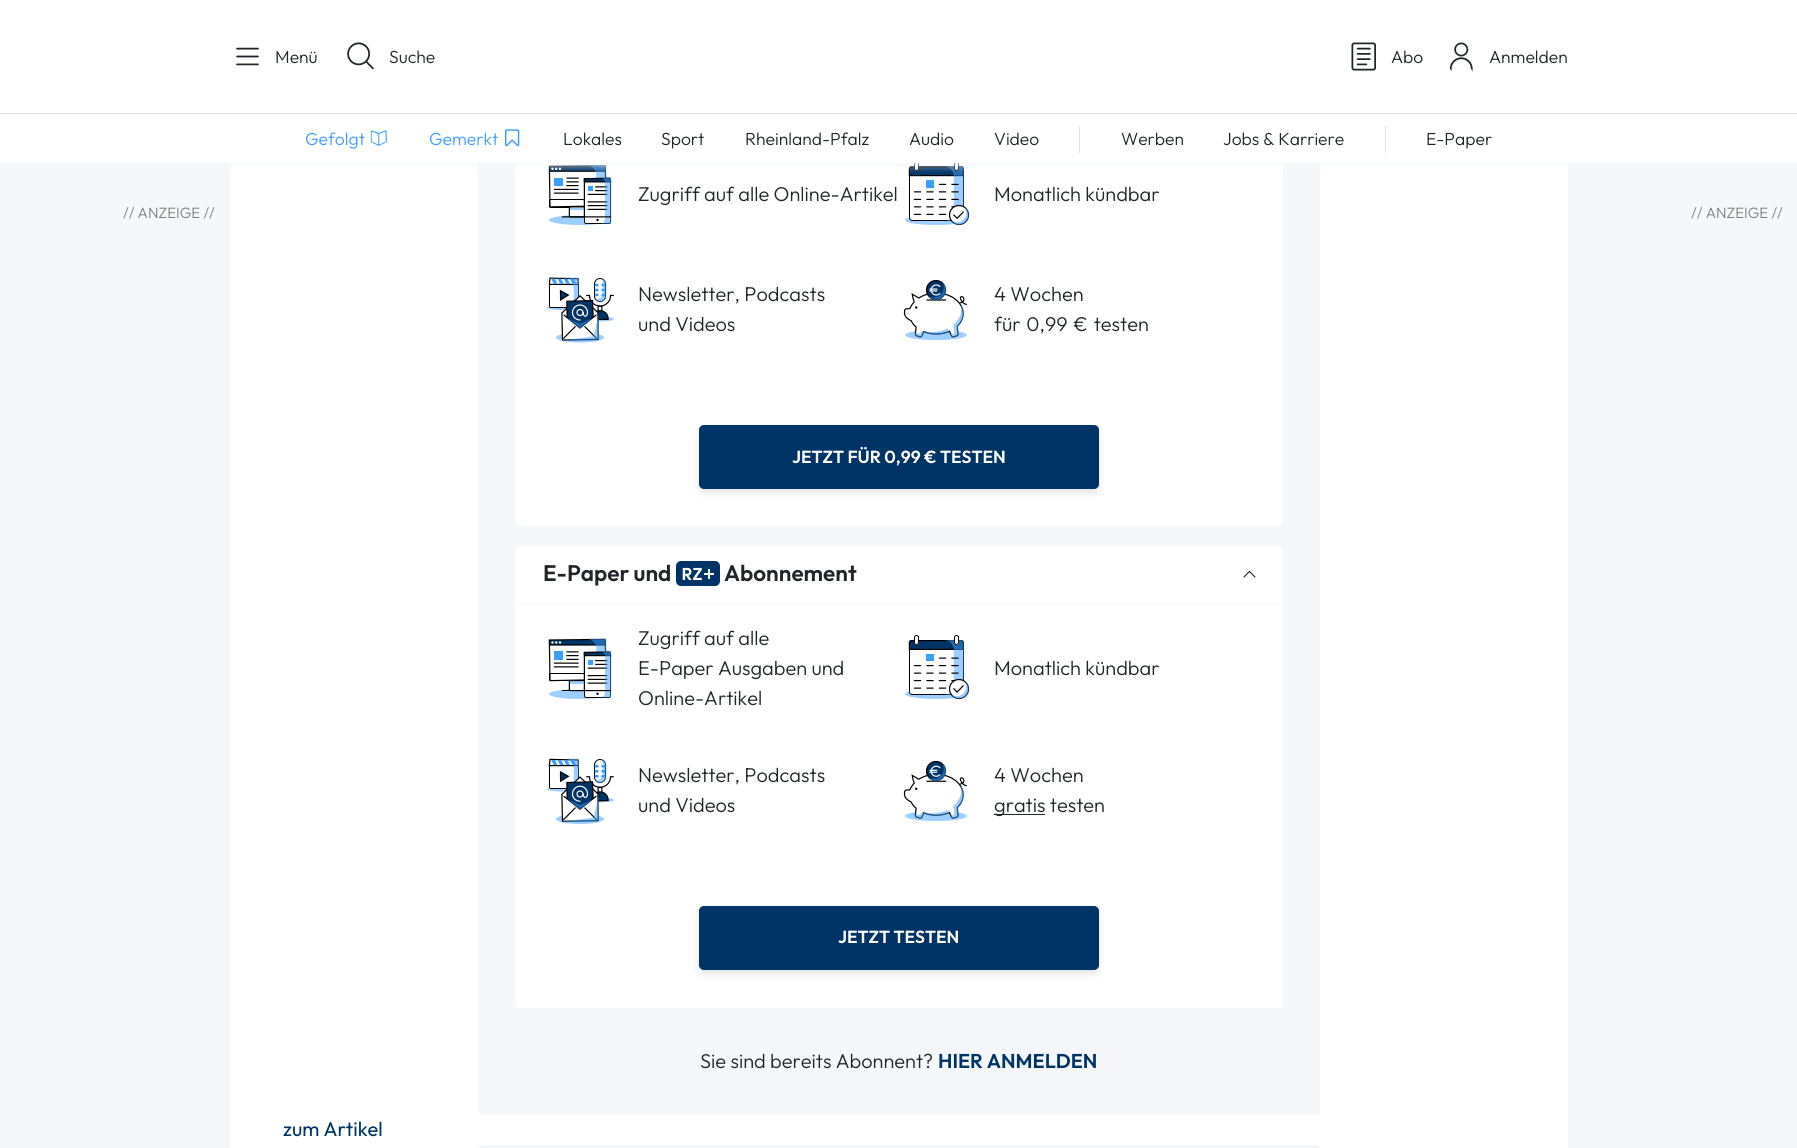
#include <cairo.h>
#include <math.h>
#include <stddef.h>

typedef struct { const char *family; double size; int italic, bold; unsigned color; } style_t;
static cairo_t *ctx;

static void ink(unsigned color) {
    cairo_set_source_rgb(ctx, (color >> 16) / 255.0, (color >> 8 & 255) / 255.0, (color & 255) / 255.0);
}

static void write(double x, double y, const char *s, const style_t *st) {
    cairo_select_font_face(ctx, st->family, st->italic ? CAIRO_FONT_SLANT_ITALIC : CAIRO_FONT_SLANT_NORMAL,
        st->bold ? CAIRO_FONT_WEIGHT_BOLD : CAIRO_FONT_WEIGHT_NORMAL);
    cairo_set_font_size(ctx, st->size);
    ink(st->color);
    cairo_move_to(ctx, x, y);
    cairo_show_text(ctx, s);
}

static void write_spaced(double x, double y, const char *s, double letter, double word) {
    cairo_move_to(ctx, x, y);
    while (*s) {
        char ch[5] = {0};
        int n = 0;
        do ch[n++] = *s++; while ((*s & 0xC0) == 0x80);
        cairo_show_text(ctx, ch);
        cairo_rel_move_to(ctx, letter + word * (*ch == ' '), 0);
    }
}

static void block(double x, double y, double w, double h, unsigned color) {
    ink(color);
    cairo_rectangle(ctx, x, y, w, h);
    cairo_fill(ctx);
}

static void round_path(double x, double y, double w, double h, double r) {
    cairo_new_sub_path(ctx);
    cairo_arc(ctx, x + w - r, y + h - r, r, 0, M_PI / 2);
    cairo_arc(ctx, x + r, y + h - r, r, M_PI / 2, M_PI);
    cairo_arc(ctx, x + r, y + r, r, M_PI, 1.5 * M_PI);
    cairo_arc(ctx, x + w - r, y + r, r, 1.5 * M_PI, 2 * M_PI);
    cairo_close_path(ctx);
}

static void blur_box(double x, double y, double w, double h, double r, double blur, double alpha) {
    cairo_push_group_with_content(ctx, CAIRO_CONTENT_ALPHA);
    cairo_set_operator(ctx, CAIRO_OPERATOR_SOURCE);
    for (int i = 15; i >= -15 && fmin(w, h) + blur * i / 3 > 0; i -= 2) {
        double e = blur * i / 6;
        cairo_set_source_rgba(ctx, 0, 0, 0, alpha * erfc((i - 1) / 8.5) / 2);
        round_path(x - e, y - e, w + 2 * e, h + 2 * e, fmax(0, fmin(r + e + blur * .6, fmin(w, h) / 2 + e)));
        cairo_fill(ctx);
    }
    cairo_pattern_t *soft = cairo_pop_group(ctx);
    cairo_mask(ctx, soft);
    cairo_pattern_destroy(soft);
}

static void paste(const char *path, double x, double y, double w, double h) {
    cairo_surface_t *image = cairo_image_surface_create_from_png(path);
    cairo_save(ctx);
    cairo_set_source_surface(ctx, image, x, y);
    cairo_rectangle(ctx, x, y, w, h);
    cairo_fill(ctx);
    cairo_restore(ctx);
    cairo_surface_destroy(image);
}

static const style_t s1 = {"Outfit Light", 17.5, 0, 0, 0x212529};
static const style_t s2 = {"Outfit Light", 17.5, 0, 0, 0x3e9eff};
static const style_t s3 = {"Outfit Light", 15, 0, 0, 0x7f7f7f};
static const style_t s4 = {"Outfit Light", 20, 0, 0, 0x212529};
static const style_t s5 = {"Outfit SemiBold", 17.5, 0, 0, 0xffffff};
static const style_t s6 = {"Outfit SemiBold", 22.5, 0, 0, 0x212529};
static const style_t s7 = {"Outfit SemiBold", 20, 0, 0, 0x003366};
static const style_t s8 = {"Outfit", 20, 0, 0, 0x003366};

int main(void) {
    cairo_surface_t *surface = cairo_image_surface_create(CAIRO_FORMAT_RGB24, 1797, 1148);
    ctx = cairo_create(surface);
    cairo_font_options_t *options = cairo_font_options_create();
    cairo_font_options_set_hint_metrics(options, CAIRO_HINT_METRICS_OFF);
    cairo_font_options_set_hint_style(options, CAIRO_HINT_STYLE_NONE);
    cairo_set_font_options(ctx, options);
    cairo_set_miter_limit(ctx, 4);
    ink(0xf5f7fa);
    cairo_paint(ctx);
    block(230, 163, 1338, 985, 0xffffff);
    ink(0xf5f7fa);
    round_path(478, -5, 842, 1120, 5);
    cairo_fill(ctx);
    ink(0xffffff);
    round_path(515, 81, 768, 445, 5);
    cairo_fill(ctx);
    paste("pic7.png", 548, 165, 64, 60);
    paste("pic8.png", 905, 163, 65, 63);
    ink(0xf5f7fa);
    blur_box(0, 3, 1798, 162, 0, 4, 1);
    block(0, 0, 1797, 163, 0xffffff);
    paste("pic1.png", 236, 47, 23, 19);
    write(275, 63, "Menü", &s1);
    paste("pic2.png", 347, 42, 27, 28);
    write(389, 63, "Suche", &s1);
    paste("pic3.png", 1351, 42, 25, 29);
    write(1391, 63, "Abo", &s1);
    paste("pic4.png", 1449, 42, 24, 30);
    write(1489, 63, "Anmelden", &s1);
    block(0, 113, 1797, 1, 0xdce1e5);
    write(305, 145, "Gefolgt", &s2);
    paste("pic5.png", 370, 130, 17, 16);
    write(429, 145, "Gemerkt", &s2);
    paste("pic6.png", 505, 129, 15, 18);
    write(563, 145, "Lokales", &s1);
    write(661, 145, "Sport", &s1);
    write(745, 145, "Rheinland-Pfalz", &s1);
    write(909, 145, "Audio", &s1);
    write(994, 145, "Video", &s1);
    block(1079, 126, 1, 27, 0xdce1e5);
    write(1121, 145, "Werben", &s1);
    write(1223, 145, "Jobs & Karriere", &s1);
    block(1385, 126, 1, 27, 0xdce1e5);
    write(1426, 145, "E-Paper", &s1);
    write(123, 218, "// ANZEIGE //", &s3);
    write(638, 201, "Zugriff auf alle Online-Artikel", &s4);
    write(994, 201, "Monatlich kündbar", &s4);
    paste("pic9.png", 547, 277, 67, 66);
    write(638, 301, "Newsletter, Podcasts", &s4);
    write(638, 331, "und Videos", &s4);
    paste("pic10.png", 903, 279, 64, 61);
    write(994, 301, "4 Wochen", &s4);
    write_spaced(994, 331, "für 0,99 € testen", 0, 1.5);
    ink(0x000000);
    blur_box(699, 429, 400, 64, 5, 4, 0.11);
    ink(0x003366);
    round_path(699.5, 425.5, 399, 63, 4.5);
    cairo_fill_preserve(ctx);
    cairo_set_line_width(ctx, 1);
    cairo_stroke(ctx);
    write(792, 463, "JETZT FÜR 0,99 € TESTEN", &s5);
    round_path(515, 546, 768, 462, 5);
    cairo_fill(ctx);
    block(515, 604, 768, 1, 0xf5f7fa);
    write(543, 581, "E-Paper und", &s6);
    paste("pic11.png", 676, 561, 44, 25);
    write(724, 581, "Abonnement", &s6);
    paste("pic12.png", 1243, 570, 13, 8);
    paste("pic13.png", 548, 638, 64, 61);
    write(638, 645, "Zugriff auf alle", &s4);
    write(638, 675, "E-Paper Ausgaben und", &s4);
    write(638, 705, "Online-Artikel", &s4);
    paste("pic14.png", 905, 635, 65, 65);
    write(994, 675, "Monatlich kündbar", &s4);
    paste("pic15.png", 547, 758, 67, 66);
    write(638, 782, "Newsletter, Podcasts", &s4);
    write(638, 812, "und Videos", &s4);
    paste("pic16.png", 903, 760, 64, 61);
    write(994, 782, "4 Wochen", &s4);
    block(994, 814, 51, 1, 0x212529);
    write(994, 812, "gratis testen", &s4);
    ink(0x000000);
    blur_box(699, 910, 400, 64, 5, 4, 0.11);
    ink(0x003366);
    round_path(699.5, 906.5, 399, 63, 4.5);
    cairo_fill_preserve(ctx);
    cairo_stroke(ctx);
    write(838, 943, "JETZT TESTEN", &s5);
    write(700, 1068, "Sie sind bereits Abonnent?", &s4);
    write(938, 1068, "HIER ANMELDEN", &s7);
    write(283, 1136, "zum Artikel", &s8);
    ink(0xf5f7fa);
    round_path(478, 1145, 842, 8, 5);
    cairo_fill(ctx);
    write(1691, 218, "// ANZEIGE //", &s3);
    cairo_surface_write_to_png(surface, "screenshot.png");
    cairo_font_options_destroy(options);
    cairo_destroy(ctx);
    cairo_surface_destroy(surface);
    return 0;
}
